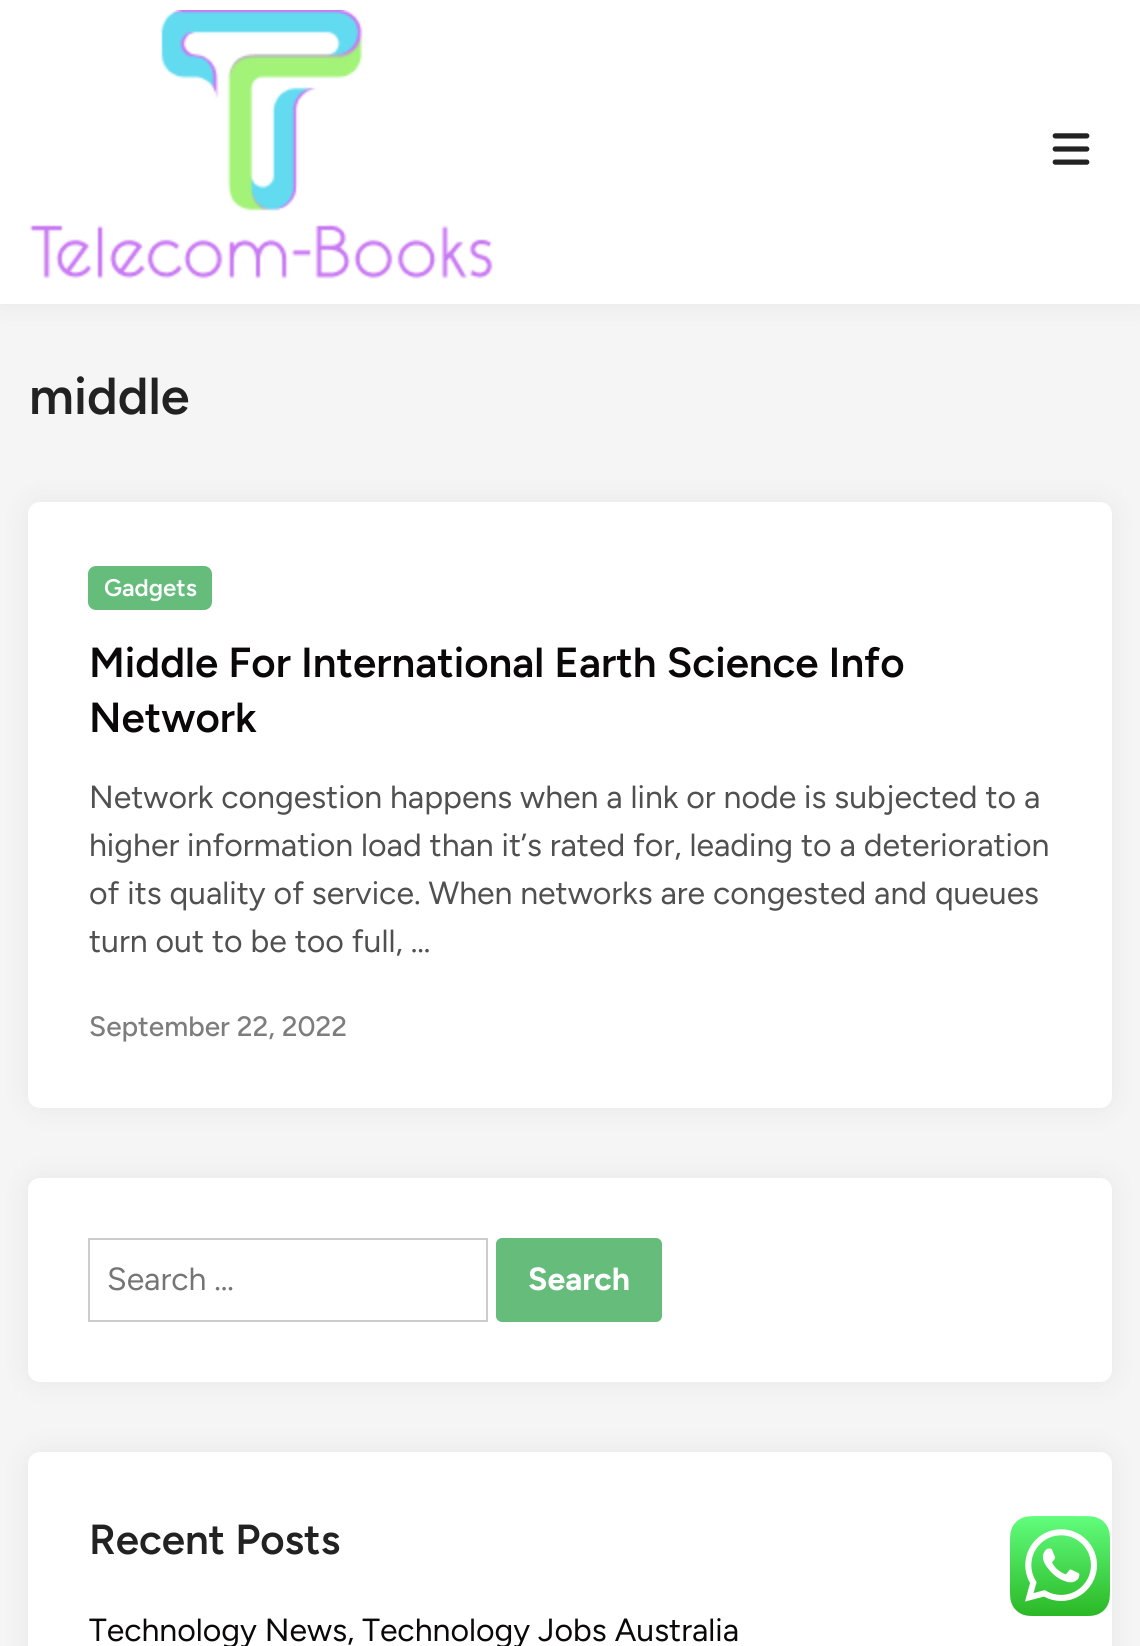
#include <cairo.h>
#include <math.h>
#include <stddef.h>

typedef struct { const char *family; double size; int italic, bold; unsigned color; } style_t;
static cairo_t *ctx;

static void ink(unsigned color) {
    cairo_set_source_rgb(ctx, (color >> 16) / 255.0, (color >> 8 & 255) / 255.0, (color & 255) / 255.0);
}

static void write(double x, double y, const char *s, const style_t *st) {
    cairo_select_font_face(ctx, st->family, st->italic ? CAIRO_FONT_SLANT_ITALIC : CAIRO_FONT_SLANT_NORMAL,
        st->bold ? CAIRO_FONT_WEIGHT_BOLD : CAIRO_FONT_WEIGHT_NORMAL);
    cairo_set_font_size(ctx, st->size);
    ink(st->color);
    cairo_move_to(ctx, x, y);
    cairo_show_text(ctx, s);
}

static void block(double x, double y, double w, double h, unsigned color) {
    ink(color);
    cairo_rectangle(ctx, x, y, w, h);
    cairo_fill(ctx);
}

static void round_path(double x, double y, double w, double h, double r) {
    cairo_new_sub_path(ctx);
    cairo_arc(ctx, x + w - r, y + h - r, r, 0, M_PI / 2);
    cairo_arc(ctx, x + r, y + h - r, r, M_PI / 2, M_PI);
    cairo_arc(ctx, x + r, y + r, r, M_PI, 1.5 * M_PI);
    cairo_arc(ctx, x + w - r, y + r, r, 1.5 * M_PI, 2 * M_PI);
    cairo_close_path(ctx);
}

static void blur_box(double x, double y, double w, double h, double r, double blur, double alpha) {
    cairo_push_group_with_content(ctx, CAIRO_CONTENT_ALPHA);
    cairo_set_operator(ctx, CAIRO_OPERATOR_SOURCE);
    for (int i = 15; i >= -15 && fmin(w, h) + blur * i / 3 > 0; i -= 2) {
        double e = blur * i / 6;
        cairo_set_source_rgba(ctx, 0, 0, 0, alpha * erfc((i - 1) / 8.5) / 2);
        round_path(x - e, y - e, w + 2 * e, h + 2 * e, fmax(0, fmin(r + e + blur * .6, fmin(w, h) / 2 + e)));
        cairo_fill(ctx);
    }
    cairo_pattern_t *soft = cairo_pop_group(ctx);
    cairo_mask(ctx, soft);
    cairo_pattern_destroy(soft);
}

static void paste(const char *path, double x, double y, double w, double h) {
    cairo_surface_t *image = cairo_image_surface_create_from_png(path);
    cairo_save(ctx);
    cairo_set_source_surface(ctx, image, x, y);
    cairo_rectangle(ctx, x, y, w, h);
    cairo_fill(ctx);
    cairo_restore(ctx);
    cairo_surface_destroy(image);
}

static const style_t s1 = {"Figtree SemiBold", 52, 0, 0, 0x222222};
static const style_t s2 = {"Figtree SemiBold", 24, 0, 0, 0xffffff};
static const style_t s3 = {"Figtree SemiBold", 42, 0, 0, 0x0a0808};
static const style_t s4 = {"Figtree", 32, 0, 0, 0x505050};
static const style_t s5 = {"Figtree Medium", 28, 0, 0, 0x7d7d7d};
static const style_t s6 = {"Figtree", 32, 0, 0, 0x757575};
static const style_t s7 = {"Figtree", 32, 0, 1, 0xffffff};
static const style_t s8 = {"Figtree SemiBold", 42, 0, 0, 0x222222};
static const style_t s9 = {"Figtree", 32, 0, 0, 0x0a0808};

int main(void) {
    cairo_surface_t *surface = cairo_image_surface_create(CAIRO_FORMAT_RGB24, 1140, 1646);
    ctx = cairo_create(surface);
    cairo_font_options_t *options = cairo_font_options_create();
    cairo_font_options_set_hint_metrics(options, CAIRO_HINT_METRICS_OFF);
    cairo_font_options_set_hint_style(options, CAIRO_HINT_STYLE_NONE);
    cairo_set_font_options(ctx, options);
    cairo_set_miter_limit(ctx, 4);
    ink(0xf5f5f5);
    cairo_paint(ctx);
    ink(0x000000);
    blur_box(0, 0, 1140, 304, 0, 15, 0.06);
    block(0, 0, 1140, 304, 0xffffff);
    paste("pic1.png", 29, 10, 464, 269);
    paste("pic2.png", 1052, 133, 38, 32);
    write(29, 414, "middle", &s1);
    ink(0x000000);
    blur_box(28, 502, 1084, 606, 12, 15, 0.06);
    ink(0xffffff);
    round_path(28, 502, 1084, 606, 12);
    cairo_fill(ctx);
    ink(0x65bc7b);
    round_path(88, 566, 124, 44, 8);
    cairo_fill(ctx);
    write(104, 596, "Gadgets", &s2);
    write(89, 677, "Middle For International Earth Science Info", &s3);
    write(89, 732, "Network", &s3);
    write(89, 808, "Network congestion happens when a link or node is subjected to a", &s4);
    write(89, 856, "higher information load than it’s rated for, leading to a deterioration", &s4);
    write(89, 904, "of its quality of service. When networks are congested and queues", &s4);
    write(89, 952, "turn out to be too full, …", &s4);
    write(89, 1036, "September 22, 2022", &s5);
    ink(0x000000);
    blur_box(28, 1178, 1084, 204, 12, 15, 0.06);
    ink(0xffffff);
    round_path(28, 1178, 1084, 204, 12);
    cairo_fill(ctx);
    cairo_rectangle(ctx, 89, 1239, 398, 82);
    ink(0xcccccc);
    cairo_stroke(ctx);
    write(107, 1290, "Search …", &s6);
    ink(0x65bc7b);
    round_path(496, 1238, 166, 84, 6);
    cairo_fill(ctx);
    write(528, 1290, "Search", &s7);
    ink(0x000000);
    blur_box(28, 1452, 1084, 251, 12, 15, 0.06);
    ink(0xffffff);
    round_path(28, 1452, 1084, 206, 12);
    cairo_fill(ctx);
    write(89, 1554, "Recent Posts", &s8);
    write(89, 1641, "Technology News, Technology Jobs Australia", &s9);
    paste("pic3.png", 1010, 1516, 100, 100);
    cairo_surface_write_to_png(surface, "screenshot.png");
    cairo_font_options_destroy(options);
    cairo_destroy(ctx);
    cairo_surface_destroy(surface);
    return 0;
}
